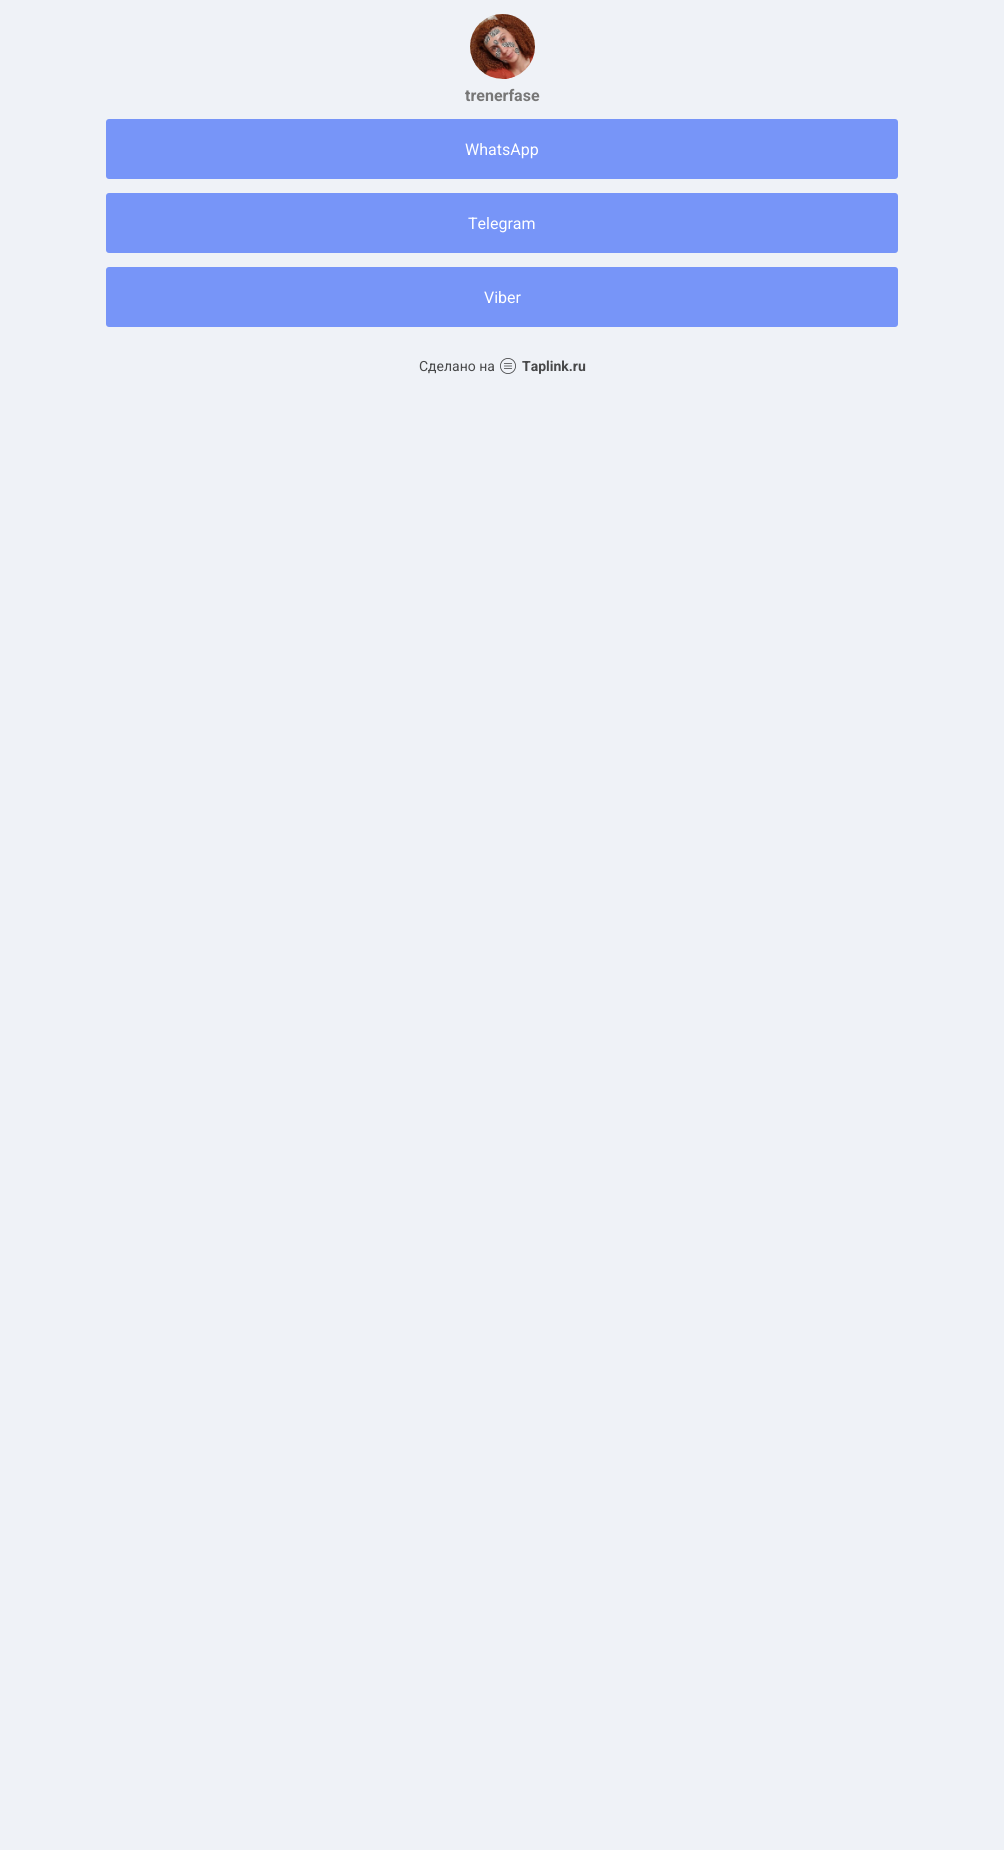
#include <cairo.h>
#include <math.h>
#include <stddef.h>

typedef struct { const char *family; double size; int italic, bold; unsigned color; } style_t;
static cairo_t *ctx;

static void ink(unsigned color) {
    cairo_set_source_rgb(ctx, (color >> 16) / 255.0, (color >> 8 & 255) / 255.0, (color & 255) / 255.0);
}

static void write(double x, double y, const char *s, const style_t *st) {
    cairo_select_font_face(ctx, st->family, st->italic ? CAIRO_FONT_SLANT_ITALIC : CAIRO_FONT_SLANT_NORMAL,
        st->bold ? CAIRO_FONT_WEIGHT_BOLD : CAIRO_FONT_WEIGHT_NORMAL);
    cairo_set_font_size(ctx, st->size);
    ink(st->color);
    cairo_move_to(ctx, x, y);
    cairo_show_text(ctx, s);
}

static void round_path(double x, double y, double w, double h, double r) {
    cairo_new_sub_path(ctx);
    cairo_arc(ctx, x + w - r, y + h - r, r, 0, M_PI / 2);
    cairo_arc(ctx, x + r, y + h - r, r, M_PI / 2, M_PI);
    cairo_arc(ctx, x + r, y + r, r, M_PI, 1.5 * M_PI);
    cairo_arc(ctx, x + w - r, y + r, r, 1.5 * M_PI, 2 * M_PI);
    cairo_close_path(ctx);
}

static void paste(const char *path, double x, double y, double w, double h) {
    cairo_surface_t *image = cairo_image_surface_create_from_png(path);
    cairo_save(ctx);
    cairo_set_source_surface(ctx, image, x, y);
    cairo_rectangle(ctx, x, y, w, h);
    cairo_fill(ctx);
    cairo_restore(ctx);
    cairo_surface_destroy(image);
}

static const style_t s1 = {"Roboto", 16, 0, 1, 0x777777};
static const style_t s2 = {"Roboto", 16, 0, 0, 0xffffff};
static const style_t s3 = {"Roboto", 14, 0, 0, 0x48494a};
static const style_t s4 = {"Roboto", 14, 0, 1, 0x48494a};

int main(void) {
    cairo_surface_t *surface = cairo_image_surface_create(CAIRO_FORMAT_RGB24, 1004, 1850);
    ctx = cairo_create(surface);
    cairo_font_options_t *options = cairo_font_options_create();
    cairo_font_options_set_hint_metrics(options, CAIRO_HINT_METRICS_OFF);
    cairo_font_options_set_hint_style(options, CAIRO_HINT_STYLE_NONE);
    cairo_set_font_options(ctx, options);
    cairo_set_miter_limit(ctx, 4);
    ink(0xeff2f7);
    cairo_paint(ctx);
    paste("pic1.png", 470, 14, 65, 65);
    write(465, 101, "trenerfase", &s1);
    ink(0x7795f8);
    round_path(107, 120, 790, 58, 2);
    cairo_fill_preserve(ctx);
    cairo_stroke(ctx);
    write(465, 155, "WhatsApp", &s2);
    ink(0x7795f8);
    round_path(107, 194, 790, 58, 2);
    cairo_fill_preserve(ctx);
    cairo_stroke(ctx);
    write(468, 229, "Telegram", &s2);
    ink(0x7795f8);
    round_path(107, 268, 790, 58, 2);
    cairo_fill_preserve(ctx);
    cairo_stroke(ctx);
    write(484, 303, "Viber", &s2);
    write(419, 371, "Сделано на", &s3);
    paste("pic2.png", 500, 358, 16, 16);
    write(522, 371, "Taplink.ru", &s4);
    cairo_surface_write_to_png(surface, "screenshot.png");
    cairo_font_options_destroy(options);
    cairo_destroy(ctx);
    cairo_surface_destroy(surface);
    return 0;
}
